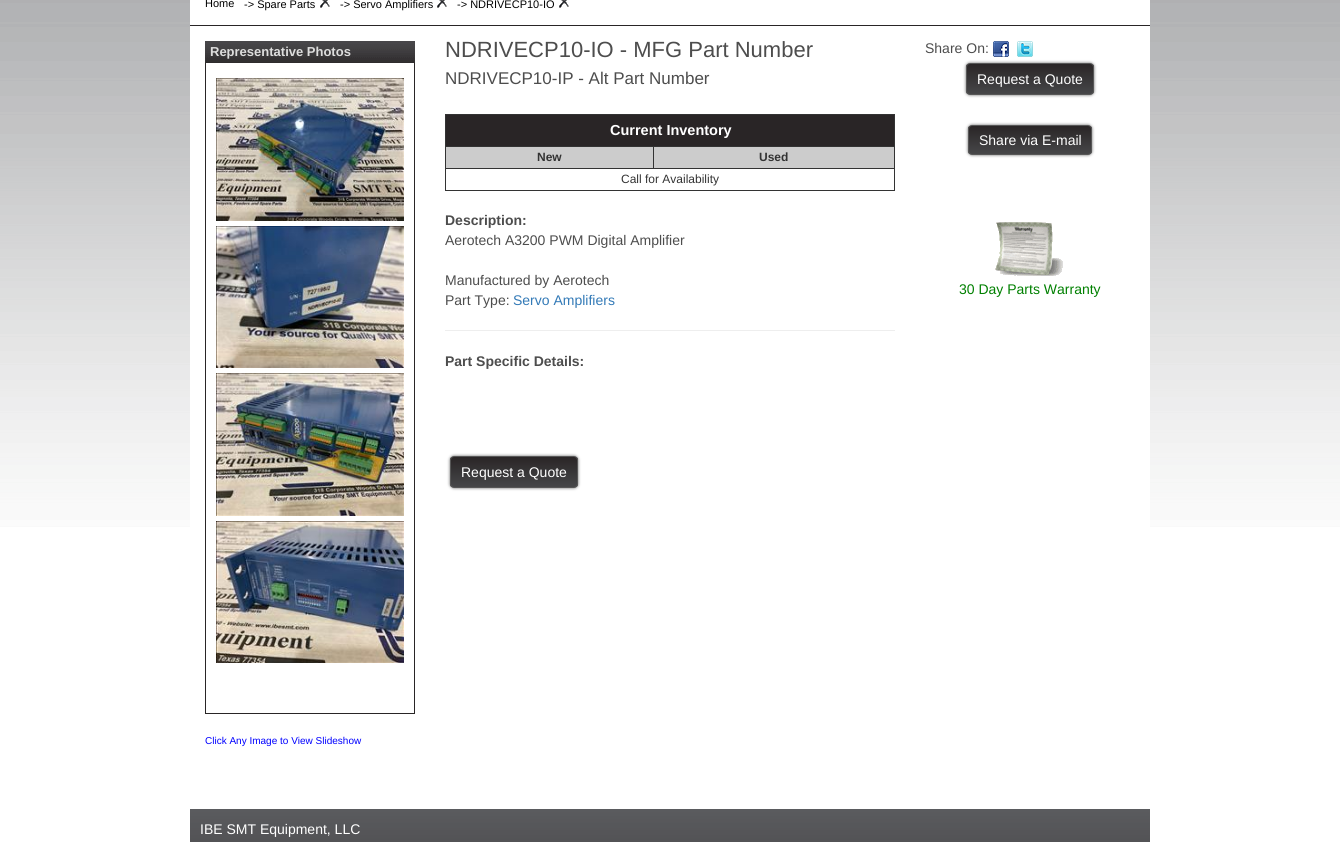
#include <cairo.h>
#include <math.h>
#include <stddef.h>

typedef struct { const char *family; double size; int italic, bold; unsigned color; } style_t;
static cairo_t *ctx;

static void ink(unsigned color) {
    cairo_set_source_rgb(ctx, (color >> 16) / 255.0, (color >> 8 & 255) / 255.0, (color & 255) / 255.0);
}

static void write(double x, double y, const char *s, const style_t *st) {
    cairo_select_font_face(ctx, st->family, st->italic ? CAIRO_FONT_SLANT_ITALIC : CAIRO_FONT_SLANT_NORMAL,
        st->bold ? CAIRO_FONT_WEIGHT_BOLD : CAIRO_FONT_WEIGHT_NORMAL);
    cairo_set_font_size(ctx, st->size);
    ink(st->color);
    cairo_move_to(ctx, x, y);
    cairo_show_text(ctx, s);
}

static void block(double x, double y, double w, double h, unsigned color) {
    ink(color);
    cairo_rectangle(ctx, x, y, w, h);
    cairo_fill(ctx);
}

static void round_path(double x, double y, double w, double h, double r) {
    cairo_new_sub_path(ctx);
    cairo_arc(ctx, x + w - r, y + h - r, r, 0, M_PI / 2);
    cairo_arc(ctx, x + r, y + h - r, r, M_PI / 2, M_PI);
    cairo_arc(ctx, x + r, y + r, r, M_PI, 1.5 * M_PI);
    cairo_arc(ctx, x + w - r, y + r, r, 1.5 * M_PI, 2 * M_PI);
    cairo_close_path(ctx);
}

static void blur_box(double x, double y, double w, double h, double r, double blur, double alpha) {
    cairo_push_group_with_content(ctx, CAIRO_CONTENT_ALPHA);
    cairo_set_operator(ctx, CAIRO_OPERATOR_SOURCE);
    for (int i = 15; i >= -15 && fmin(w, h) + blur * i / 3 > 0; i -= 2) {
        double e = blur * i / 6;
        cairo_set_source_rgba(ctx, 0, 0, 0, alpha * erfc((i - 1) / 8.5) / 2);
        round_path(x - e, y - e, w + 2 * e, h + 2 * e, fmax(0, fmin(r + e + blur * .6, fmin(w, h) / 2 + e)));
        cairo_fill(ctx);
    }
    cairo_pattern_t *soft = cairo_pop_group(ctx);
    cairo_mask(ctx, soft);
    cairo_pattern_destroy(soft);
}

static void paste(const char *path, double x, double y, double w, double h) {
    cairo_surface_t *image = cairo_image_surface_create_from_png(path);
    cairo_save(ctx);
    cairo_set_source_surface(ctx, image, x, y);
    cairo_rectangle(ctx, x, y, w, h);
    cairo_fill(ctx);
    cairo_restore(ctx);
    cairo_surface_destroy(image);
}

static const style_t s1 = {"Liberation Sans", 11, 0, 0, 0x000000};
static const style_t s2 = {"Liberation Sans", 13, 0, 1, 0xdddddd};
static const style_t s3 = {"Liberation Sans", 10, 0, 0, 0x0000ff};
static const style_t s4 = {"Liberation Sans", 22, 0, 0, 0x4d4d4d};
static const style_t s5 = {"Liberation Sans", 17, 0, 0, 0x4d4d4d};
static const style_t s6 = {"Liberation Sans", 14.5, 0, 1, 0xffffff};
static const style_t s7 = {"Liberation Sans", 12, 0, 1, 0x333333};
static const style_t s8 = {"Liberation Sans", 12, 0, 0, 0x333333};
static const style_t s9 = {"Liberation Sans", 14, 0, 1, 0x4d4d4d};
static const style_t s10 = {"Liberation Sans", 14, 0, 0, 0x4d4d4d};
static const style_t s11 = {"Liberation Sans", 14, 0, 0, 0x337ab7};
static const style_t s12 = {"Liberation Sans", 14, 0, 0, 0xffffff};
static const style_t s13 = {"Liberation Sans", 14, 0, 0, 0x008000};

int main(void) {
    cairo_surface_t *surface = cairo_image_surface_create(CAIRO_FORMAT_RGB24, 1340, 842);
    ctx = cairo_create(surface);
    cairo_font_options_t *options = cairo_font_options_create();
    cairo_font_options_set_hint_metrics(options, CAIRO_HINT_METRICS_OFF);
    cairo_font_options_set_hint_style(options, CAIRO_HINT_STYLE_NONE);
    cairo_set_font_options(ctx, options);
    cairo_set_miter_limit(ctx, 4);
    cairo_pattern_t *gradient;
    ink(0xffffff);
    cairo_paint(ctx);
    paste("pic1.png", 0, 0, 1340, 527);
    block(190, 0, 960, 527, 0xffffff);
    block(190, 25, 960, 1, 0x292526);
    write(205, 7, "Home", &s1);
    write(244, 8, "-> Spare Parts", &s1);
    paste("pic2.png", 320, 0, 10, 8);
    write(340, 8, "-> Servo Amplifiers", &s1);
    paste("pic2.png", 437, 0, 10, 8);
    write(457, 8, "-> NDRIVECP10-IO", &s1);
    paste("pic2.png", 559, 0, 10, 8);
    paste("pic3.png", 205, 41, 210, 22);
    write(210, 56, "Representative Photos", &s2);
    block(414, 63, 1, 651, 0x292526);
    block(205, 713, 210, 1, 0x292526);
    block(205, 63, 1, 651, 0x292526);
    paste("pic4.png", 216, 78, 188, 143);
    paste("pic5.png", 216, 226, 188, 142);
    paste("pic6.png", 216, 373, 188, 143);
    paste("pic7.png", 216, 521, 188, 142);
    write(205, 744, "Click Any Image to View Slideshow", &s3);
    write(445, 57, "NDRIVECP10-IO - MFG Part Number", &s4);
    write(445, 84, "NDRIVECP10-IP - Alt Part Number", &s5);
    block(446, 115, 448, 31, 0x292526);
    block(445, 114, 450, 1, 0x333333);
    block(653, 146, 242, 1, 0x333333);
    block(445, 168, 450, 1, 0x333333);
    block(894, 168, 1, 23, 0x333333);
    block(894, 146, 1, 23, 0x333333);
    block(894, 114, 1, 33, 0x333333);
    block(653, 146, 1, 23, 0x333333);
    block(445, 146, 209, 1, 0x333333);
    block(445, 190, 450, 1, 0x333333);
    block(445, 168, 1, 23, 0x333333);
    block(445, 146, 1, 23, 0x333333);
    block(445, 114, 1, 33, 0x333333);
    write(610, 135, "Current Inventory", &s6);
    block(446, 147, 207, 21, 0xcccccc);
    write(537, 161, "New", &s7);
    block(654, 147, 240, 21, 0xcccccc);
    write(759, 161, "Used", &s7);
    write(621, 183, "Call for Availability", &s8);
    write(445, 225, "Description:", &s9);
    write(445, 245, "Aerotech A3200 PWM Digital Amplifier", &s10);
    write(445, 285, "Manufactured by Aerotech", &s10);
    write(445, 305, "Part Type:", &s10);
    write(513, 305, "Servo Amplifiers", &s11);
    block(445, 330, 450, 1, 0xeeeeee);
    write(445, 366, "Part Specific Details:", &s9);
    ink(0x666666);
    blur_box(450, 456, 128, 32, 4, 1.5, 1);
    cairo_save(ctx);
    round_path(450, 456, 128, 32, 4);
    cairo_clip(ctx);
    gradient = cairo_pattern_create_linear(514, 457, 514, 487);
    cairo_pattern_add_color_stop_rgba(gradient, 0, 0.161, 0.145, 0.149, 1);
    cairo_pattern_add_color_stop_rgba(gradient, 1, 0.278, 0.278, 0.286, 1);
    cairo_set_source(ctx, gradient);
    cairo_pattern_destroy(gradient);
    cairo_rectangle(ctx, 450, 457, 128, 30);
    cairo_fill(ctx);
    cairo_restore(ctx);
    round_path(450.5, 456.5, 127, 31, 3.5);
    ink(0x575757);
    cairo_set_line_width(ctx, 1);
    cairo_stroke(ctx);
    write(461, 477, "Request a Quote", &s12);
    write(925, 53, "Share On:", &s10);
    paste("pic8.png", 993, 41, 16, 16);
    paste("pic9.png", 1017, 41, 16, 16);
    ink(0x666666);
    blur_box(966, 63, 128, 32, 4, 1.5, 1);
    cairo_save(ctx);
    round_path(966, 63, 128, 32, 4);
    cairo_clip(ctx);
    gradient = cairo_pattern_create_linear(1030, 64, 1030, 94);
    cairo_pattern_add_color_stop_rgba(gradient, 0, 0.161, 0.145, 0.149, 1);
    cairo_pattern_add_color_stop_rgba(gradient, 1, 0.278, 0.278, 0.286, 1);
    cairo_set_source(ctx, gradient);
    cairo_pattern_destroy(gradient);
    cairo_rectangle(ctx, 966, 64, 128, 30);
    cairo_fill(ctx);
    cairo_restore(ctx);
    round_path(966.5, 63.5, 127, 31, 3.5);
    ink(0x575757);
    cairo_stroke(ctx);
    write(977, 84, "Request a Quote", &s12);
    ink(0x666666);
    blur_box(968, 125, 124, 30, 4, 1.5, 1);
    cairo_save(ctx);
    round_path(968, 125, 124, 30, 4);
    cairo_clip(ctx);
    gradient = cairo_pattern_create_linear(1030, 126, 1030, 154);
    cairo_pattern_add_color_stop_rgba(gradient, 0, 0.161, 0.145, 0.149, 1);
    cairo_pattern_add_color_stop_rgba(gradient, 1, 0.278, 0.278, 0.286, 1);
    cairo_set_source(ctx, gradient);
    cairo_pattern_destroy(gradient);
    cairo_rectangle(ctx, 968, 126, 124, 28);
    cairo_fill(ctx);
    cairo_restore(ctx);
    round_path(968.5, 125.5, 123, 29, 3.5);
    ink(0x575757);
    cairo_stroke(ctx);
    write(979, 145, "Share via E-mail", &s12);
    paste("pic10.png", 995, 222, 68, 54);
    write(959, 294, "30 Day Parts Warranty", &s13);
    paste("pic11.png", 190, 809, 960, 33);
    write(200, 834, "IBE SMT Equipment, LLC", &s12);
    cairo_surface_write_to_png(surface, "screenshot.png");
    cairo_font_options_destroy(options);
    cairo_destroy(ctx);
    cairo_surface_destroy(surface);
    return 0;
}
